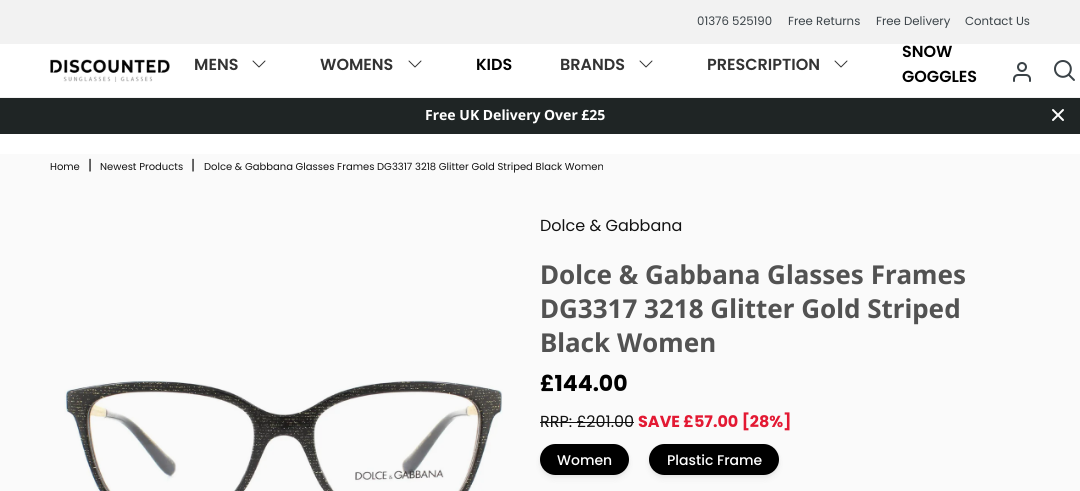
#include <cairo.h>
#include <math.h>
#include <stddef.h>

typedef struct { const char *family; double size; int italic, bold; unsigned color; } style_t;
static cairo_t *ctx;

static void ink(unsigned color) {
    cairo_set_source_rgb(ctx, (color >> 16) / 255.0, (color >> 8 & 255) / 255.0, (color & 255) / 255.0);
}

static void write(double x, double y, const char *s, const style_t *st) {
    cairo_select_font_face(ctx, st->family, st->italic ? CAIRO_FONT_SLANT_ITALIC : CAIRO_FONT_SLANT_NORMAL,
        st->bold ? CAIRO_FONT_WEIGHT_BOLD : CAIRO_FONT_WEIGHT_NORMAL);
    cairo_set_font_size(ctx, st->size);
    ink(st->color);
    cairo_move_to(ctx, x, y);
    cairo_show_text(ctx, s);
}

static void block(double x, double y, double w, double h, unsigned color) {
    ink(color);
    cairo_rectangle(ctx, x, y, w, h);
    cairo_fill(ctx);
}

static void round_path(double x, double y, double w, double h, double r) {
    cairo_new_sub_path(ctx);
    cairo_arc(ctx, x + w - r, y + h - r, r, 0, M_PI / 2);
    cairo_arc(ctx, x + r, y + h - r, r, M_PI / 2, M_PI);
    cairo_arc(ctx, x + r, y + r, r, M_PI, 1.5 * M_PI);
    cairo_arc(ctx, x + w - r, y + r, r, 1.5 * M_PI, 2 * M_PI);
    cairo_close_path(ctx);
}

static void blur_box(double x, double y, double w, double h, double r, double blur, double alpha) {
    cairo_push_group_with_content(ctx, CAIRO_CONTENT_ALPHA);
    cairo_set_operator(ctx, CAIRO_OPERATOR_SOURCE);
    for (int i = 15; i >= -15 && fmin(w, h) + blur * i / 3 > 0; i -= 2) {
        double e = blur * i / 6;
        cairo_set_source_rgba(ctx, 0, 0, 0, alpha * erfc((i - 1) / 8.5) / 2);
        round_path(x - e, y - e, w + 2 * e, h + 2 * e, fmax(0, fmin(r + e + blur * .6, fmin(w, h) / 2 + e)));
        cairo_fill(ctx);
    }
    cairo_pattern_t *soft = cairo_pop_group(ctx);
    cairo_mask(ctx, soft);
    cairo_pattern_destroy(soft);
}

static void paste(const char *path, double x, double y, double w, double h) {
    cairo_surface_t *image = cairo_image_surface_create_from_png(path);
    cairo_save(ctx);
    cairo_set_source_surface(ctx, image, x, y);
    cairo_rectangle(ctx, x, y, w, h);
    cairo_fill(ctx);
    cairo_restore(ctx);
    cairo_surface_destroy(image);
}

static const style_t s1 = {"Poppins", 11.75, 0, 0, 0x3b4348};
static const style_t s2 = {"Poppins SemiBold", 16, 0, 0, 0x333333};
static const style_t s3 = {"Poppins SemiBold", 16, 0, 0, 0x000000};
static const style_t s4 = {"Noto Sans", 14, 0, 1, 0xffffff};
static const style_t s5 = {"Poppins", 10, 0, 0, 0x121212};
static const style_t s6 = {"Poppins", 14, 0, 0, 0x121212};
static const style_t s7 = {"Poppins", 16, 0, 0, 0x121212};
static const style_t s8 = {"Noto Sans", 26, 0, 1, 0x525252};
static const style_t s9 = {"Poppins", 22, 0, 1, 0x000000};
static const style_t s10 = {"Poppins", 16, 0, 1, 0xe31933};
static const style_t s11 = {"Poppins Medium", 14, 0, 0, 0xffffff};

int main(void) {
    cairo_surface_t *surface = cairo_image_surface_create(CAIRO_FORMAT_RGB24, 1080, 491);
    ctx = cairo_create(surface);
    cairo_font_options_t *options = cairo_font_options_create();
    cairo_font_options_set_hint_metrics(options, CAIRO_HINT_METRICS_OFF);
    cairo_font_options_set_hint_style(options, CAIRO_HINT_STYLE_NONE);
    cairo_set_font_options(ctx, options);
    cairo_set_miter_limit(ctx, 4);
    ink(0xffffff);
    cairo_paint(ctx);
    block(0, 97, 1080, 1, 0xf2f2f2);
    block(0, 0, 1080, 44, 0xf2f2f2);
    write(697, 25, "01376 525190", &s1);
    write(788, 25, "Free Returns", &s1);
    write(876, 25, "Free Delivery", &s1);
    write(965, 25, "Contact Us", &s1);
    paste("pic1.png", 50, 59, 120, 23);
    write(194, 70, "MENS", &s2);
    paste("pic2.png", 252, 60, 14, 8);
    write(320, 70, "WOMENS", &s2);
    paste("pic2.png", 408, 60, 14, 8);
    write(476, 70, "KIDS", &s3);
    write(560, 70, "BRANDS", &s2);
    paste("pic2.png", 639, 60, 14, 8);
    write(707, 70, "PRESCRIPTION", &s2);
    paste("pic2.png", 834, 60, 14, 8);
    write(902, 57, "SNOW", &s3);
    write(902, 82, "GOGGLES", &s3);
    paste("pic3.png", 1013, 62, 18, 20);
    paste("pic4.png", 1054, 60, 21, 21);
    block(0, 98, 1080, 36, 0x1f2525);
    write(425, 120, "Free UK Delivery Over £25", &s4);
    paste("pic5.png", 1052, 109, 12, 12);
    block(0, 154, 1080, 337, 0xfafafa);
    write(50, 170, "Home", &s5);
    write(88, 170, "|", &s6);
    write(100, 170, "Newest Products", &s5);
    write(191, 170, "|", &s6);
    write(204, 170, "Dolce & Gabbana Glasses Frames DG3317 3218 Glitter Gold Striped Black Women", &s5);
    paste("pic6.png", 64, 380, 439, 111);
    write(540, 231, "Dolce & Gabbana", &s7);
    write(540, 284, "Dolce & Gabbana Glasses Frames", &s8);
    write(540, 318, "DG3317 3218 Glitter Gold Striped", &s8);
    write(540, 352, "Black Women", &s8);
    write(540, 391, "£144.00", &s9);
    write(540, 427, "RRP: £201.00", &s7);
    block(540, 422, 94, 1, 0x121212);
    write(638, 427, "SAVE £57.00 [28%]", &s10);
    ink(0x000000);
    blur_box(540, 445, 89, 31, 15.5, 1.5, 0.05);
    blur_box(540, 448, 89, 31, 15.5, 3, 0.05);
    ink(0x000000);
    round_path(540, 444, 89, 31, 15.5);
    cairo_fill(ctx);
    write(557, 465, "Women", &s11);
    ink(0x000000);
    blur_box(649, 445, 130, 31, 15.5, 1.5, 0.05);
    blur_box(649, 448, 130, 31, 15.5, 3, 0.05);
    ink(0x000000);
    round_path(649, 444, 130, 31, 15.5);
    cairo_fill(ctx);
    write(667, 465, "Plastic Frame", &s11);
    cairo_surface_write_to_png(surface, "screenshot.png");
    cairo_font_options_destroy(options);
    cairo_destroy(ctx);
    cairo_surface_destroy(surface);
    return 0;
}
